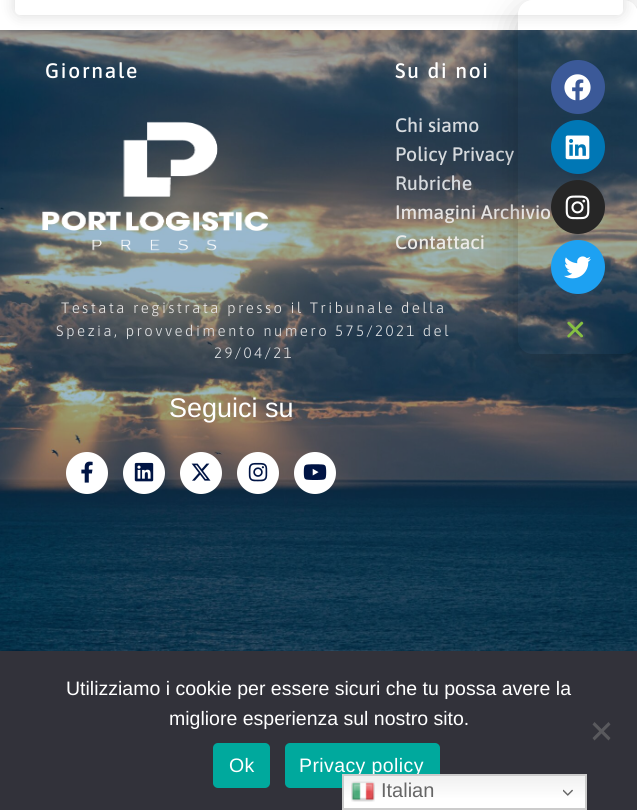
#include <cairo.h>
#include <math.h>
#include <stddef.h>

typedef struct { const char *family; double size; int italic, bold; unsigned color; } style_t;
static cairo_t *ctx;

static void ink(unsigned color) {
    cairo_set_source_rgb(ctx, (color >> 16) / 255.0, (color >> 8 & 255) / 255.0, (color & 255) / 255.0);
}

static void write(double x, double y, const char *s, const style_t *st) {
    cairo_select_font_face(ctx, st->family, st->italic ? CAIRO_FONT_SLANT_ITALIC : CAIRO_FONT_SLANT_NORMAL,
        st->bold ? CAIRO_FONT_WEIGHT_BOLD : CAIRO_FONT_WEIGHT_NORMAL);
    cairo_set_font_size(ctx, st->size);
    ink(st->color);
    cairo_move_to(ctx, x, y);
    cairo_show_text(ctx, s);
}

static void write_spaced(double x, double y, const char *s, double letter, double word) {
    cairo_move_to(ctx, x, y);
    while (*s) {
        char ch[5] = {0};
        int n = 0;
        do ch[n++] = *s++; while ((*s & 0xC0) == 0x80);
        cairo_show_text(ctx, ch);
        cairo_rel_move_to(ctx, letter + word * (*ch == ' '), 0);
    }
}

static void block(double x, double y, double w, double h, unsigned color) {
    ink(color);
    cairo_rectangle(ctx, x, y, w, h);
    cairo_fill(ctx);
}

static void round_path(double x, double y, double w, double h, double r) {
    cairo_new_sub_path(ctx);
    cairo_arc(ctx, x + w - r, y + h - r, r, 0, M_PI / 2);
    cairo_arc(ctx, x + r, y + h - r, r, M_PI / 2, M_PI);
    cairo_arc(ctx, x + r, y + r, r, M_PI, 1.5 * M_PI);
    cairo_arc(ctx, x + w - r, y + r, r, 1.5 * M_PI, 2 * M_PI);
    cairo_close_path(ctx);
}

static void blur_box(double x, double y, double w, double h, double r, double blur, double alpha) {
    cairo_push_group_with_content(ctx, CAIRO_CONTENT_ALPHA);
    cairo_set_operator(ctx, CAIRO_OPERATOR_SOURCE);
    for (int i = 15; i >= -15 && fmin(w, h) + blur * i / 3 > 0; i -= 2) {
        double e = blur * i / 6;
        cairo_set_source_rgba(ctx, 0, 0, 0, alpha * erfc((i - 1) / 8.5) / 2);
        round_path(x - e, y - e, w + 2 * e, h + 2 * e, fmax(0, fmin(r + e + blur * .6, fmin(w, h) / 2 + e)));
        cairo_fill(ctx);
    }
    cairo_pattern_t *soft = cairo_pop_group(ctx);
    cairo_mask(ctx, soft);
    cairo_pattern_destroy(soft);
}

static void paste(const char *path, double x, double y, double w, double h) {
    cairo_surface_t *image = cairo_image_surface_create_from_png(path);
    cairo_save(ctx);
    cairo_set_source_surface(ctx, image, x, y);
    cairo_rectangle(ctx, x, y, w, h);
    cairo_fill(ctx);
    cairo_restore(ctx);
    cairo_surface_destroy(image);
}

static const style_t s1 = {"Asap Medium", 19.5, 0, 0, 0xd6dade};
static const style_t s2 = {"Asap Medium", 19.5, 0, 0, 0xe5e3e2};
static const style_t s3 = {"Asap Medium", 19.5, 0, 0, 0xeaeae7};
static const style_t s4 = {"Liberation Sans", 27, 0, 0, 0xffffff};
static const style_t s5 = {"Liberation Sans", 19.5, 0, 0, 0xffffff};
static const style_t s6 = {"Liberation Sans", 20, 0, 0, 0x666666};

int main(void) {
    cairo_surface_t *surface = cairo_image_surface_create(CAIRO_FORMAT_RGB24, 637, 810);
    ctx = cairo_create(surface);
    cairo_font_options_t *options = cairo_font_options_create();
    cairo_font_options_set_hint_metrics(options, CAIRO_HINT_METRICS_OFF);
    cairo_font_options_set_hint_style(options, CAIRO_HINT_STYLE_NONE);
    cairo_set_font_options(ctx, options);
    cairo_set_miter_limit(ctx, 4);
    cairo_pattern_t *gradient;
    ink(0xffffff);
    cairo_paint(ctx);
    ink(0x000000);
    blur_box(15, -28, 608, 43, 5, 7.5, 0.15);
    ink(0xffffff);
    round_path(15, -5, 608, 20, 5);
    cairo_fill(ctx);
    paste("pic1.png", 0, 30, 637, 621);
    cairo_set_source_rgba(ctx, 0.012, 0.306, 0.525, 0.4);
    cairo_rectangle(ctx, 0, 30, 637, 621);
    cairo_fill(ctx);
    cairo_select_font_face(ctx, "Asap Medium", CAIRO_FONT_SLANT_NORMAL, CAIRO_FONT_WEIGHT_NORMAL);
    cairo_set_font_size(ctx, 21);
    ink(0xffffff);
    write_spaced(45, 78, "Giornale", 1.75, 0);
    paste("pic2.png", 42, 121, 227, 130);
    write_spaced(395, 78, "Su di noi", 1.75, 0);
    write(395, 132, "Chi siamo", &s1);
    write(395, 161, "Policy Privacy", &s1);
    write(395, 190, "Rubriche", &s1);
    write(395, 219, "Immagini Archivio", &s2);
    write(395, 249, "Contattaci", &s3);
    cairo_select_font_face(ctx, "Asap Light", CAIRO_FONT_SLANT_NORMAL, CAIRO_FONT_WEIGHT_NORMAL);
    cairo_set_font_size(ctx, 15);
    ink(0xe5e3e2);
    write_spaced(61, 313, "Testata registrata presso il Tribunale della", 2.4, 0);
    ink(0xdddfe1);
    write_spaced(56, 336, "Spezia, provvedimento numero 575/2021 del", 2.4, 0);
    write_spaced(214, 358, "29/04/21", 2.4, 0);
    write(169, 417, "Seguici su", &s4);
    cairo_new_path(ctx);
    cairo_arc(ctx, 87, 473, 21, 0, 2 * M_PI);
    cairo_fill(ctx);
    paste("pic3.png", 81, 461, 12, 22);
    cairo_arc(ctx, 144, 473, 21, 0, 2 * M_PI);
    cairo_fill(ctx);
    paste("pic4.png", 134, 462, 20, 20);
    cairo_arc(ctx, 201, 473, 21, 0, 2 * M_PI);
    cairo_fill(ctx);
    paste("pic5.png", 191, 463, 20, 18);
    cairo_arc(ctx, 258, 473, 21, 0, 2 * M_PI);
    cairo_fill(ctx);
    paste("pic6.png", 248, 462, 20, 20);
    cairo_arc(ctx, 315, 473, 21, 0, 2 * M_PI);
    cairo_fill(ctx);
    paste("pic7.png", 303, 464, 24, 16);
    cairo_save(ctx);
    cairo_set_fill_rule(ctx, CAIRO_FILL_RULE_EVEN_ODD);
    cairo_new_path(ctx);
    cairo_move_to(ctx, 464, 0);
    cairo_line_to(ctx, 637, 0);
    cairo_line_to(ctx, 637, 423);
    cairo_line_to(ctx, 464, 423);
    cairo_close_path(ctx);
    cairo_move_to(ctx, 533, 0);
    cairo_line_to(ctx, 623, 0);
    cairo_curve_to(ctx, 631.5, 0, 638, 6.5, 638, 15);
    cairo_line_to(ctx, 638, 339);
    cairo_curve_to(ctx, 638, 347.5, 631.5, 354, 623, 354);
    cairo_line_to(ctx, 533, 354);
    cairo_curve_to(ctx, 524.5, 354, 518, 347.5, 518, 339);
    cairo_line_to(ctx, 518, 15);
    cairo_curve_to(ctx, 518, 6.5, 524.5, 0, 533, 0);
    cairo_close_path(ctx);
    cairo_clip(ctx);
    ink(0x000000);
    blur_box(516, 8, 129, 363, 20, 17, 0.2);
    cairo_restore(ctx);
    ink(0x3b5998);
    cairo_arc(ctx, 578, 87, 27, 0, 2 * M_PI);
    cairo_fill(ctx);
    paste("pic8.png", 564, 74, 27, 27);
    ink(0x0077b5);
    cairo_arc(ctx, 578, 147, 27, 0, 2 * M_PI);
    cairo_fill(ctx);
    paste("pic9.png", 565, 135, 25, 25);
    ink(0x262626);
    cairo_arc(ctx, 578, 207, 27, 0, 2 * M_PI);
    cairo_fill(ctx);
    paste("pic10.png", 565, 195, 25, 25);
    ink(0x1da1f2);
    cairo_arc(ctx, 578, 267, 27, 0, 2 * M_PI);
    cairo_fill(ctx);
    paste("pic11.png", 564, 256, 27, 23);
    paste("pic12.png", 567, 321, 17, 17);
    block(0, 651, 637, 159, 0x32323a);
    write(66, 695, "Utilizziamo i cookie per essere sicuri che tu possa avere la", &s5);
    write(169, 725, "migliore esperienza sul nostro sito.", &s5);
    ink(0x59595d);
    cairo_new_path(ctx);
    cairo_move_to(ctx, 608.5, 722);
    cairo_line_to(ctx, 610.5, 724.5);
    cairo_line_to(ctx, 594.5, 740.5);
    cairo_line_to(ctx, 592.5, 738);
    cairo_close_path(ctx);
    cairo_fill(ctx);
    cairo_new_path(ctx);
    cairo_move_to(ctx, 592.5, 724.5);
    cairo_line_to(ctx, 594.5, 722);
    cairo_line_to(ctx, 610.5, 738);
    cairo_line_to(ctx, 608.5, 740.5);
    cairo_close_path(ctx);
    cairo_fill(ctx);
    ink(0x00a99d);
    round_path(213, 743, 57, 45, 5);
    cairo_fill(ctx);
    ink(0xffffff);
    write_spaced(229, 772, "Ok", 0.4, 0);
    ink(0x00a99d);
    round_path(285, 743, 155, 45, 5);
    cairo_fill(ctx);
    ink(0xffffff);
    write_spaced(299, 772, "Privacy policy", 0.4, 0);
    gradient = cairo_pattern_create_linear(464, 774, 464, 810);
    cairo_pattern_add_color_stop_rgba(gradient, 0, 0.937, 0.937, 0.937, 1);
    cairo_pattern_add_color_stop_rgba(gradient, 0.7, 1, 1, 1, 1);
    cairo_set_source(ctx, gradient);
    cairo_pattern_destroy(gradient);
    cairo_rectangle(ctx, 344, 776, 241, 32);
    cairo_fill(ctx);
    cairo_rectangle(ctx, 343, 775, 243, 34);
    ink(0xcccccc);
    cairo_stroke(ctx);
    paste("pic13.png", 351, 781, 24, 21);
    write(381, 797, "Italian", &s6);
    paste("pic14.png", 563, 789, 10, 7);
    cairo_surface_write_to_png(surface, "screenshot.png");
    cairo_font_options_destroy(options);
    cairo_destroy(ctx);
    cairo_surface_destroy(surface);
    return 0;
}
